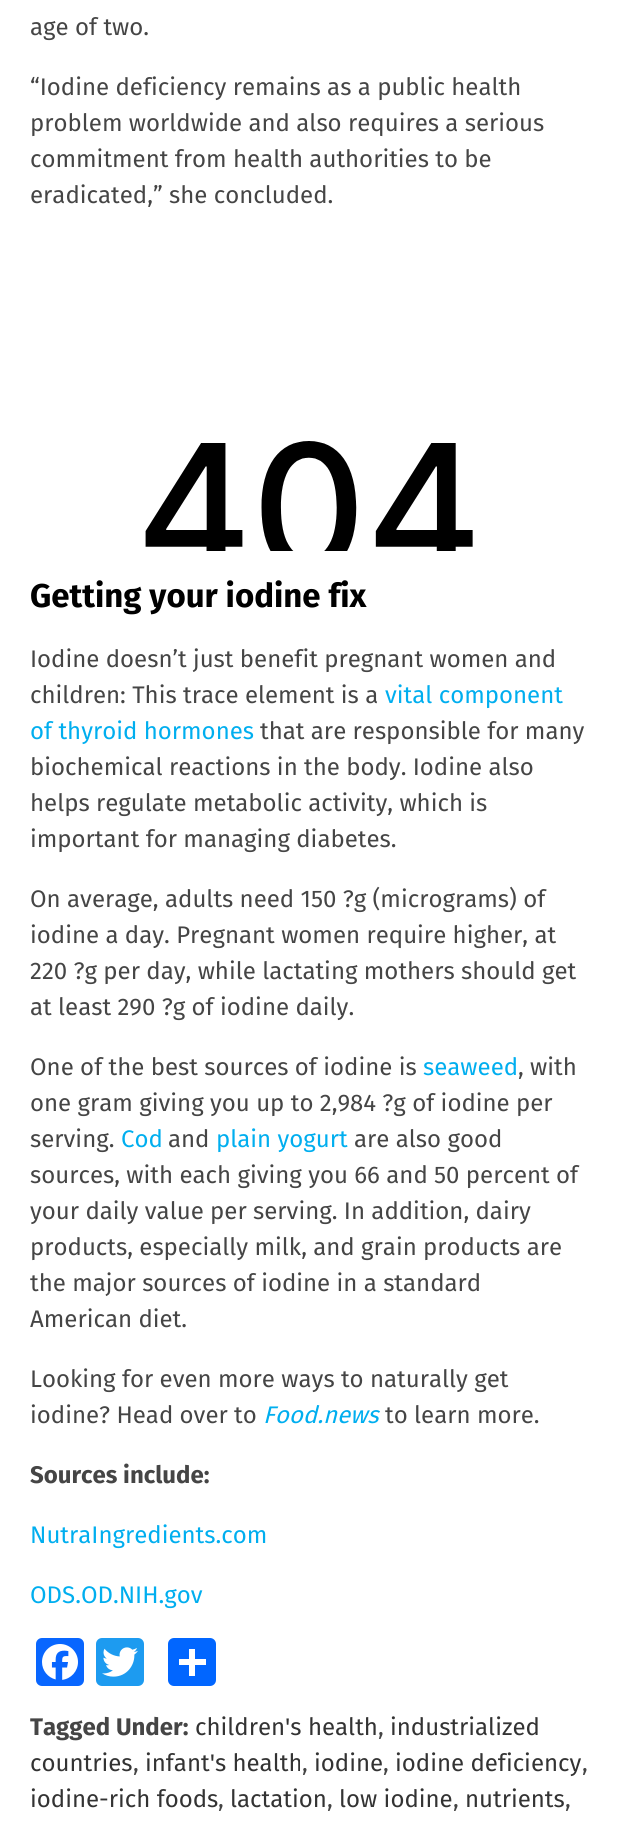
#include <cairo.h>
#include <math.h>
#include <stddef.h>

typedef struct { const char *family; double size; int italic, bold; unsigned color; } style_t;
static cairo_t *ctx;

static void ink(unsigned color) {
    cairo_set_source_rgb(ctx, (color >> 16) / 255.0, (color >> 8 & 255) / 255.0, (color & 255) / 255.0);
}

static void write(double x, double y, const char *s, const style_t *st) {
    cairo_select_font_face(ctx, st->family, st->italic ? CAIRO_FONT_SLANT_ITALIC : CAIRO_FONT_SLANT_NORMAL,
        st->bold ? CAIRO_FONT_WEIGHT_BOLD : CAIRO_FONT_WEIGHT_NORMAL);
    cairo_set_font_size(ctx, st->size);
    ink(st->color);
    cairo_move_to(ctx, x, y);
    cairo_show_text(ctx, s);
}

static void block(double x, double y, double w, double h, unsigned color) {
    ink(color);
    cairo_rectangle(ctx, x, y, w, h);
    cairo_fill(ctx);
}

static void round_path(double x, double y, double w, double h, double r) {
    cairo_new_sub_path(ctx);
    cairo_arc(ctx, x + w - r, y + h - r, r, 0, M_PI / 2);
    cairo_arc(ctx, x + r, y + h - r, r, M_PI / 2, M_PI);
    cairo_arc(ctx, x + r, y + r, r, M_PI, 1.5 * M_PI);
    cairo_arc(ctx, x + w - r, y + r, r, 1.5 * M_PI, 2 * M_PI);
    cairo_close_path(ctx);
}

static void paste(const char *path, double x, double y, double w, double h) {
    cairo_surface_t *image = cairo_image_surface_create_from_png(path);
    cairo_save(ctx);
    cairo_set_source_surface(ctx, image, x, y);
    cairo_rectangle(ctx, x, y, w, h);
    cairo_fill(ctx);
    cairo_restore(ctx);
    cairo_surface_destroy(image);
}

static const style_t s1 = {"Fira Sans", 24, 0, 0, 0x454545};
static const style_t s2 = {"Fira Sans", 33, 0, 1, 0x000000};
static const style_t s3 = {"Fira Sans", 24, 0, 0, 0x00aeef};
static const style_t s4 = {"Fira Sans", 24, 1, 0, 0x00aeef};
static const style_t s5 = {"Fira Sans", 24, 0, 1, 0x454545};
static const style_t s6 = {"Fira Sans", 24, 0, 0, 0x333333};

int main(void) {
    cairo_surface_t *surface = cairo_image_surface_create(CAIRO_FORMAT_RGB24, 618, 1831);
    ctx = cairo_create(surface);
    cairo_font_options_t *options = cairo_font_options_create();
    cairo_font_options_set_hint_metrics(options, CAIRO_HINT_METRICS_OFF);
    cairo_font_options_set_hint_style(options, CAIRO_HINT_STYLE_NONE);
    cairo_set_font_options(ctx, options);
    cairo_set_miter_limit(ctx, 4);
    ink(0xffffff);
    cairo_paint(ctx);
    write(30, 35, "age of two.", &s1);
    write(30, 95, "“Iodine deficiency remains as a public health", &s1);
    write(30, 131, "problem worldwide and also requires a serious", &s1);
    write(30, 167, "commitment from health authorities to be", &s1);
    write(30, 203, "eradicated,” she concluded.", &s1);
    paste("pic1.png", 145, 441, 328, 110);
    write(30, 607, "Getting your iodine fix", &s2);
    write(30, 667, "Iodine doesn’t just benefit pregnant women and", &s1);
    write(30, 703, "children: This trace element is a", &s1);
    write(385, 703, "vital component", &s3);
    write(30, 739, "of thyroid hormones", &s3);
    write(260, 739, "that are responsible for many", &s1);
    write(30, 775, "biochemical reactions in the body. Iodine also", &s1);
    write(30, 811, "helps regulate metabolic activity, which is", &s1);
    write(30, 847, "important for managing diabetes.", &s1);
    write(30, 907, "On average, adults need 150 ?g (micrograms) of", &s1);
    write(30, 943, "iodine a day. Pregnant women require higher, at", &s1);
    write(30, 979, "220 ?g per day, while lactating mothers should get", &s1);
    write(30, 1015, "at least 290 ?g of iodine daily.", &s1);
    write(30, 1075, "One of the best sources of iodine is", &s1);
    write(423, 1075, "seaweed", &s3);
    write(518, 1075, ", with", &s1);
    write(30, 1111, "one gram giving you up to 2,984 ?g of iodine per", &s1);
    write(30, 1147, "serving.", &s1);
    write(121, 1147, "Cod", &s3);
    write(168, 1147, "and", &s1);
    write(216, 1147, "plain yogurt", &s3);
    write(354, 1147, "are also good", &s1);
    write(30, 1183, "sources, with each giving you 66 and 50 percent of", &s1);
    write(30, 1219, "your daily value per serving. In addition, dairy", &s1);
    write(30, 1255, "products, especially milk, and grain products are", &s1);
    write(30, 1291, "the major sources of iodine in a standard", &s1);
    write(30, 1327, "American diet.", &s1);
    write(30, 1387, "Looking for even more ways to naturally get", &s1);
    write(30, 1423, "iodine? Head over to", &s1);
    write(263, 1423, "Food.news", &s4);
    write(385, 1423, "to learn more.", &s1);
    write(30, 1483, "Sources include:", &s5);
    write(30, 1543, "NutraIngredients.com", &s3);
    write(30, 1603, "ODS.OD.NIH.gov", &s3);
    ink(0x0866ff);
    round_path(36, 1638, 48, 48, 6);
    cairo_fill(ctx);
    paste("pic2.png", 42, 1644, 36, 36);
    ink(0x1d9bf0);
    round_path(96, 1638, 48, 48, 6);
    cairo_fill(ctx);
    paste("pic3.png", 102, 1647, 36, 30);
    ink(0x0166ff);
    round_path(168, 1638, 48, 48, 6);
    cairo_fill(ctx);
    block(189, 1649, 6, 27, 0xffffff);
    block(179, 1659, 27, 6, 0xffffff);
    write(30, 1735, "Tagged Under:", &s5);
    write(195, 1735, "children's health", &s6);
    write(378, 1735, ",", &s1);
    write(390, 1735, "industrialized", &s6);
    write(30, 1771, "countries", &s6);
    write(133, 1771, ",", &s1);
    write(145, 1771, "infant's health", &s6);
    write(302, 1771, ",", &s1);
    write(314, 1771, "iodine", &s6);
    write(383, 1771, ",", &s1);
    write(395, 1771, "iodine deficiency", &s6);
    write(582, 1771, ",", &s1);
    write(30, 1807, "iodine-rich foods", &s6);
    write(218, 1807, ",", &s1);
    write(230, 1807, "lactation", &s6);
    write(327, 1807, ",", &s1);
    write(339, 1807, "low iodine", &s6);
    write(453, 1807, ",", &s1);
    write(465, 1807, "nutrients", &s6);
    write(565, 1807, ",", &s1);
    cairo_surface_write_to_png(surface, "screenshot.png");
    cairo_font_options_destroy(options);
    cairo_destroy(ctx);
    cairo_surface_destroy(surface);
    return 0;
}
